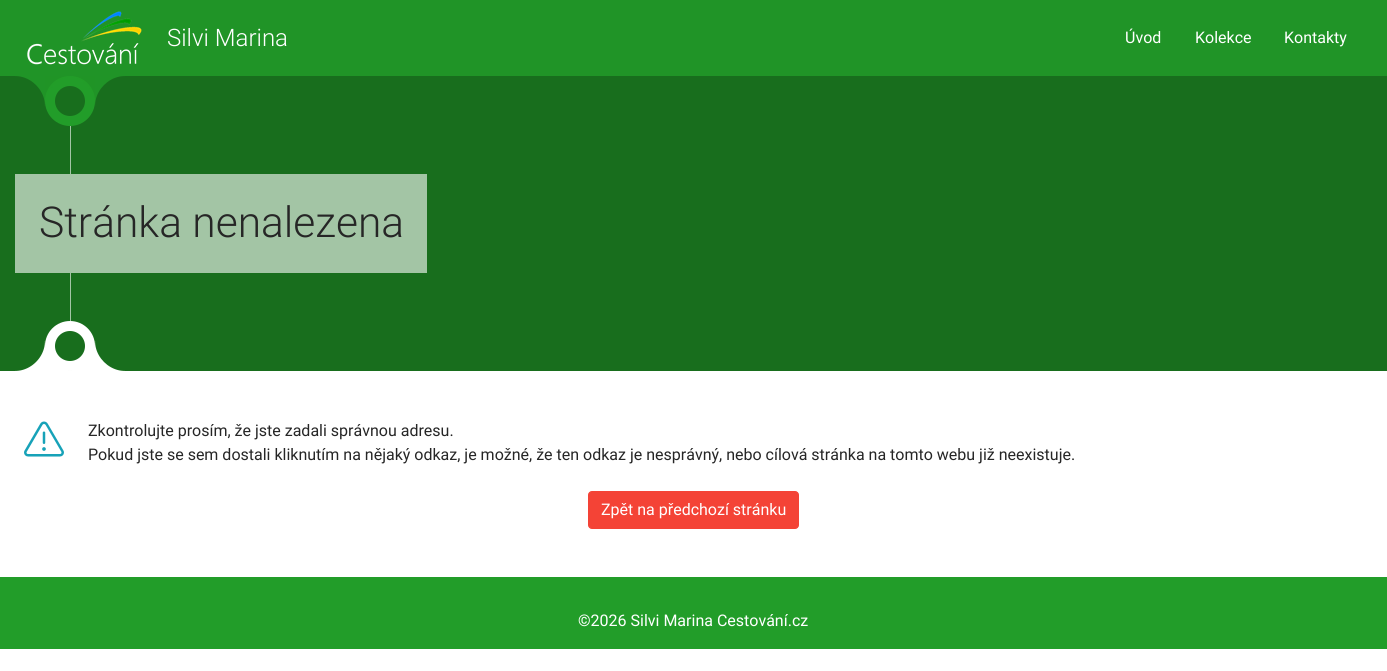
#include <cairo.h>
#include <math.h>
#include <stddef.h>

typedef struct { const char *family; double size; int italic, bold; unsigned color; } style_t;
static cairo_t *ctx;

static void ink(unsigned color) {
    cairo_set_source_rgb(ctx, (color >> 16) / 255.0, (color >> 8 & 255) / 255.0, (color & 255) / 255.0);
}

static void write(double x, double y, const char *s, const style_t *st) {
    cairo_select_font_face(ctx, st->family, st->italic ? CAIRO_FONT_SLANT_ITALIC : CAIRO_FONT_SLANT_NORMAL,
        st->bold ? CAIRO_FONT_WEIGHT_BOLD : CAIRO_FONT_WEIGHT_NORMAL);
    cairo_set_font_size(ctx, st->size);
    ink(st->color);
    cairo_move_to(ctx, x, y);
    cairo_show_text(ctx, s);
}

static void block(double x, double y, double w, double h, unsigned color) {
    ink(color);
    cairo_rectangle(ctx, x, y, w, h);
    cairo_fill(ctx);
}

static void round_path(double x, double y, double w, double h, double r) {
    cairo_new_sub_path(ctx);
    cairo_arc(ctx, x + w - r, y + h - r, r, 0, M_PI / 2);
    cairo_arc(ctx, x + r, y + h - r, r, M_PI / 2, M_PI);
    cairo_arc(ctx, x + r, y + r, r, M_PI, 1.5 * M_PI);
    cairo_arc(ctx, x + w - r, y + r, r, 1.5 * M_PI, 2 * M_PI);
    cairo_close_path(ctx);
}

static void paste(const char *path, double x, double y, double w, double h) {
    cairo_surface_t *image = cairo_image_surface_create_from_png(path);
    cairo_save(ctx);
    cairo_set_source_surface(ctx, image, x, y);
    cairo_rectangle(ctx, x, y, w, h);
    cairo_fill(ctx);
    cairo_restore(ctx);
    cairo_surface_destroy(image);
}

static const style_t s1 = {"Roboto Light", 24, 0, 0, 0xffffff};
static const style_t s2 = {"Roboto", 16, 0, 0, 0xffffff};
static const style_t s3 = {"Roboto Light", 42.5, 0, 0, 0x262626};
static const style_t s4 = {"Roboto", 16, 0, 0, 0x262626};

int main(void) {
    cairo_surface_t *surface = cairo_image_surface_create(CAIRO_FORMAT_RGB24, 1387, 671);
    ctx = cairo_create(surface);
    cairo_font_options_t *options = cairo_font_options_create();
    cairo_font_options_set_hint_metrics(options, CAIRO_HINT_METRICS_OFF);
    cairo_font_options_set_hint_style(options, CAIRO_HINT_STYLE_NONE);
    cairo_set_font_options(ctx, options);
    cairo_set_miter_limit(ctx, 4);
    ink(0xffffff);
    cairo_paint(ctx);
    block(0, 76, 1387, 295, 0x186e1d);
    block(0, 0, 1387, 76, 0x209427);
    paste("pic1.png", 27, 11, 115, 54);
    write(167, 46, "Silvi Marina", &s1);
    write(1125, 43, "Úvod", &s2);
    write(1195, 43, "Kolekce", &s2);
    write(1284, 43, "Kontakty", &s2);
    cairo_save(ctx);
    cairo_rectangle(ctx, 15, 76, 30, 30);
    cairo_clip(ctx);
    ink(0x209427);
    cairo_new_path(ctx);
    cairo_move_to(ctx, 30, 61);
    cairo_curve_to(ctx, 18, 61, 7, 68, 3, 79);
    cairo_curve_to(ctx, 27, 67, 54, 94, 42, 118);
    cairo_curve_to(ctx, 71, 105, 62, 61, 30, 61);
    cairo_close_path(ctx);
    cairo_fill(ctx);
    cairo_restore(ctx);
    cairo_arc(ctx, 70, 101, 20, 0, 2 * M_PI);
    ink(0x229d29);
    cairo_set_line_width(ctx, 10);
    cairo_stroke(ctx);
    cairo_save(ctx);
    cairo_rectangle(ctx, 45, 76, 30, 30);
    cairo_clip(ctx);
    cairo_set_source_rgba(ctx, 0.133, 0.616, 0.161, 0.8);
    cairo_new_path(ctx);
    cairo_move_to(ctx, 60, 61);
    cairo_curve_to(ctx, 28, 61, 19, 105, 48, 118);
    cairo_curve_to(ctx, 36, 94, 63, 67, 87, 79);
    cairo_curve_to(ctx, 83, 68, 72, 61, 60, 61);
    cairo_close_path(ctx);
    cairo_fill(ctx);
    cairo_restore(ctx);
    cairo_save(ctx);
    cairo_rectangle(ctx, 65, 76, 30, 30);
    cairo_clip(ctx);
    cairo_set_source_rgba(ctx, 0.133, 0.616, 0.161, 0.8);
    cairo_new_path(ctx);
    cairo_move_to(ctx, 80, 61);
    cairo_curve_to(ctx, 68, 61, 57, 68, 53, 79);
    cairo_curve_to(ctx, 77, 67, 104, 94, 92, 118);
    cairo_curve_to(ctx, 121, 105, 112, 61, 80, 61);
    cairo_close_path(ctx);
    cairo_fill(ctx);
    cairo_restore(ctx);
    cairo_save(ctx);
    cairo_rectangle(ctx, 95, 76, 30, 30);
    cairo_clip(ctx);
    ink(0x209427);
    cairo_new_path(ctx);
    cairo_move_to(ctx, 110, 61);
    cairo_curve_to(ctx, 78, 61, 69, 105, 98, 118);
    cairo_curve_to(ctx, 86, 94, 113, 67, 137, 79);
    cairo_curve_to(ctx, 133, 68, 122, 61, 110, 61);
    cairo_close_path(ctx);
    cairo_fill(ctx);
    cairo_restore(ctx);
    block(15, 174, 412, 99, 0xa3c5a5);
    block(70, 126, 1, 48, 0xa3c5a5);
    write(39, 237, "Stránka nenalezena", &s3);
    block(70, 273, 1, 48, 0xa3c5a5);
    cairo_save(ctx);
    cairo_rectangle(ctx, 15, 341, 30, 30);
    cairo_clip(ctx);
    ink(0xffffff);
    cairo_new_path(ctx);
    cairo_move_to(ctx, 3, 368);
    cairo_curve_to(ctx, 6, 376, 13, 382, 21, 385);
    cairo_curve_to(ctx, 57, 396, 76, 344, 42, 329);
    cairo_curve_to(ctx, 54, 353, 27, 380, 3, 368);
    cairo_close_path(ctx);
    cairo_fill(ctx);
    cairo_restore(ctx);
    cairo_arc(ctx, 70, 346, 20, 0, 2 * M_PI);
    ink(0xffffff);
    cairo_stroke(ctx);
    cairo_save(ctx);
    cairo_rectangle(ctx, 45, 341, 30, 30);
    cairo_clip(ctx);
    cairo_new_path(ctx);
    cairo_move_to(ctx, 48, 329);
    cairo_curve_to(ctx, 14, 344, 33, 396, 69, 385);
    cairo_curve_to(ctx, 77, 382, 84, 376, 87, 368);
    cairo_curve_to(ctx, 63, 380, 36, 353, 48, 329);
    cairo_close_path(ctx);
    cairo_fill(ctx);
    cairo_restore(ctx);
    cairo_save(ctx);
    cairo_rectangle(ctx, 65, 341, 30, 30);
    cairo_clip(ctx);
    cairo_new_path(ctx);
    cairo_move_to(ctx, 53, 368);
    cairo_curve_to(ctx, 56, 376, 63, 382, 71, 385);
    cairo_curve_to(ctx, 107, 396, 126, 344, 92, 329);
    cairo_curve_to(ctx, 104, 353, 77, 380, 53, 368);
    cairo_close_path(ctx);
    cairo_fill(ctx);
    cairo_restore(ctx);
    cairo_save(ctx);
    cairo_rectangle(ctx, 95, 341, 30, 30);
    cairo_clip(ctx);
    cairo_new_path(ctx);
    cairo_move_to(ctx, 98, 329);
    cairo_curve_to(ctx, 90, 332, 84, 339, 81, 347);
    cairo_curve_to(ctx, 70, 383, 122, 402, 137, 368);
    cairo_curve_to(ctx, 113, 380, 86, 353, 98, 329);
    cairo_close_path(ctx);
    cairo_fill(ctx);
    cairo_restore(ctx);
    paste("pic2.png", 24, 421, 40, 36);
    write(88, 436, "Zkontrolujte prosím, že jste zadali správnou adresu.", &s4);
    write(88, 460, "Pokud jste se sem dostali kliknutím na nějaký odkaz, je možné, že ten odkaz je nesprávný, nebo cílová stránka na tomto webu již neexistuje.", &s4);
    ink(0xf44336);
    round_path(588.5, 491.5, 210, 37, 3.5);
    cairo_fill_preserve(ctx);
    cairo_set_line_width(ctx, 1);
    cairo_stroke(ctx);
    write(601, 515, "Zpět na předchozí stránku", &s2);
    block(0, 577, 1387, 72, 0x229d29);
    write(578, 626, "©2026 Silvi Marina Cestování.cz", &s2);
    cairo_surface_write_to_png(surface, "screenshot.png");
    cairo_font_options_destroy(options);
    cairo_destroy(ctx);
    cairo_surface_destroy(surface);
    return 0;
}
